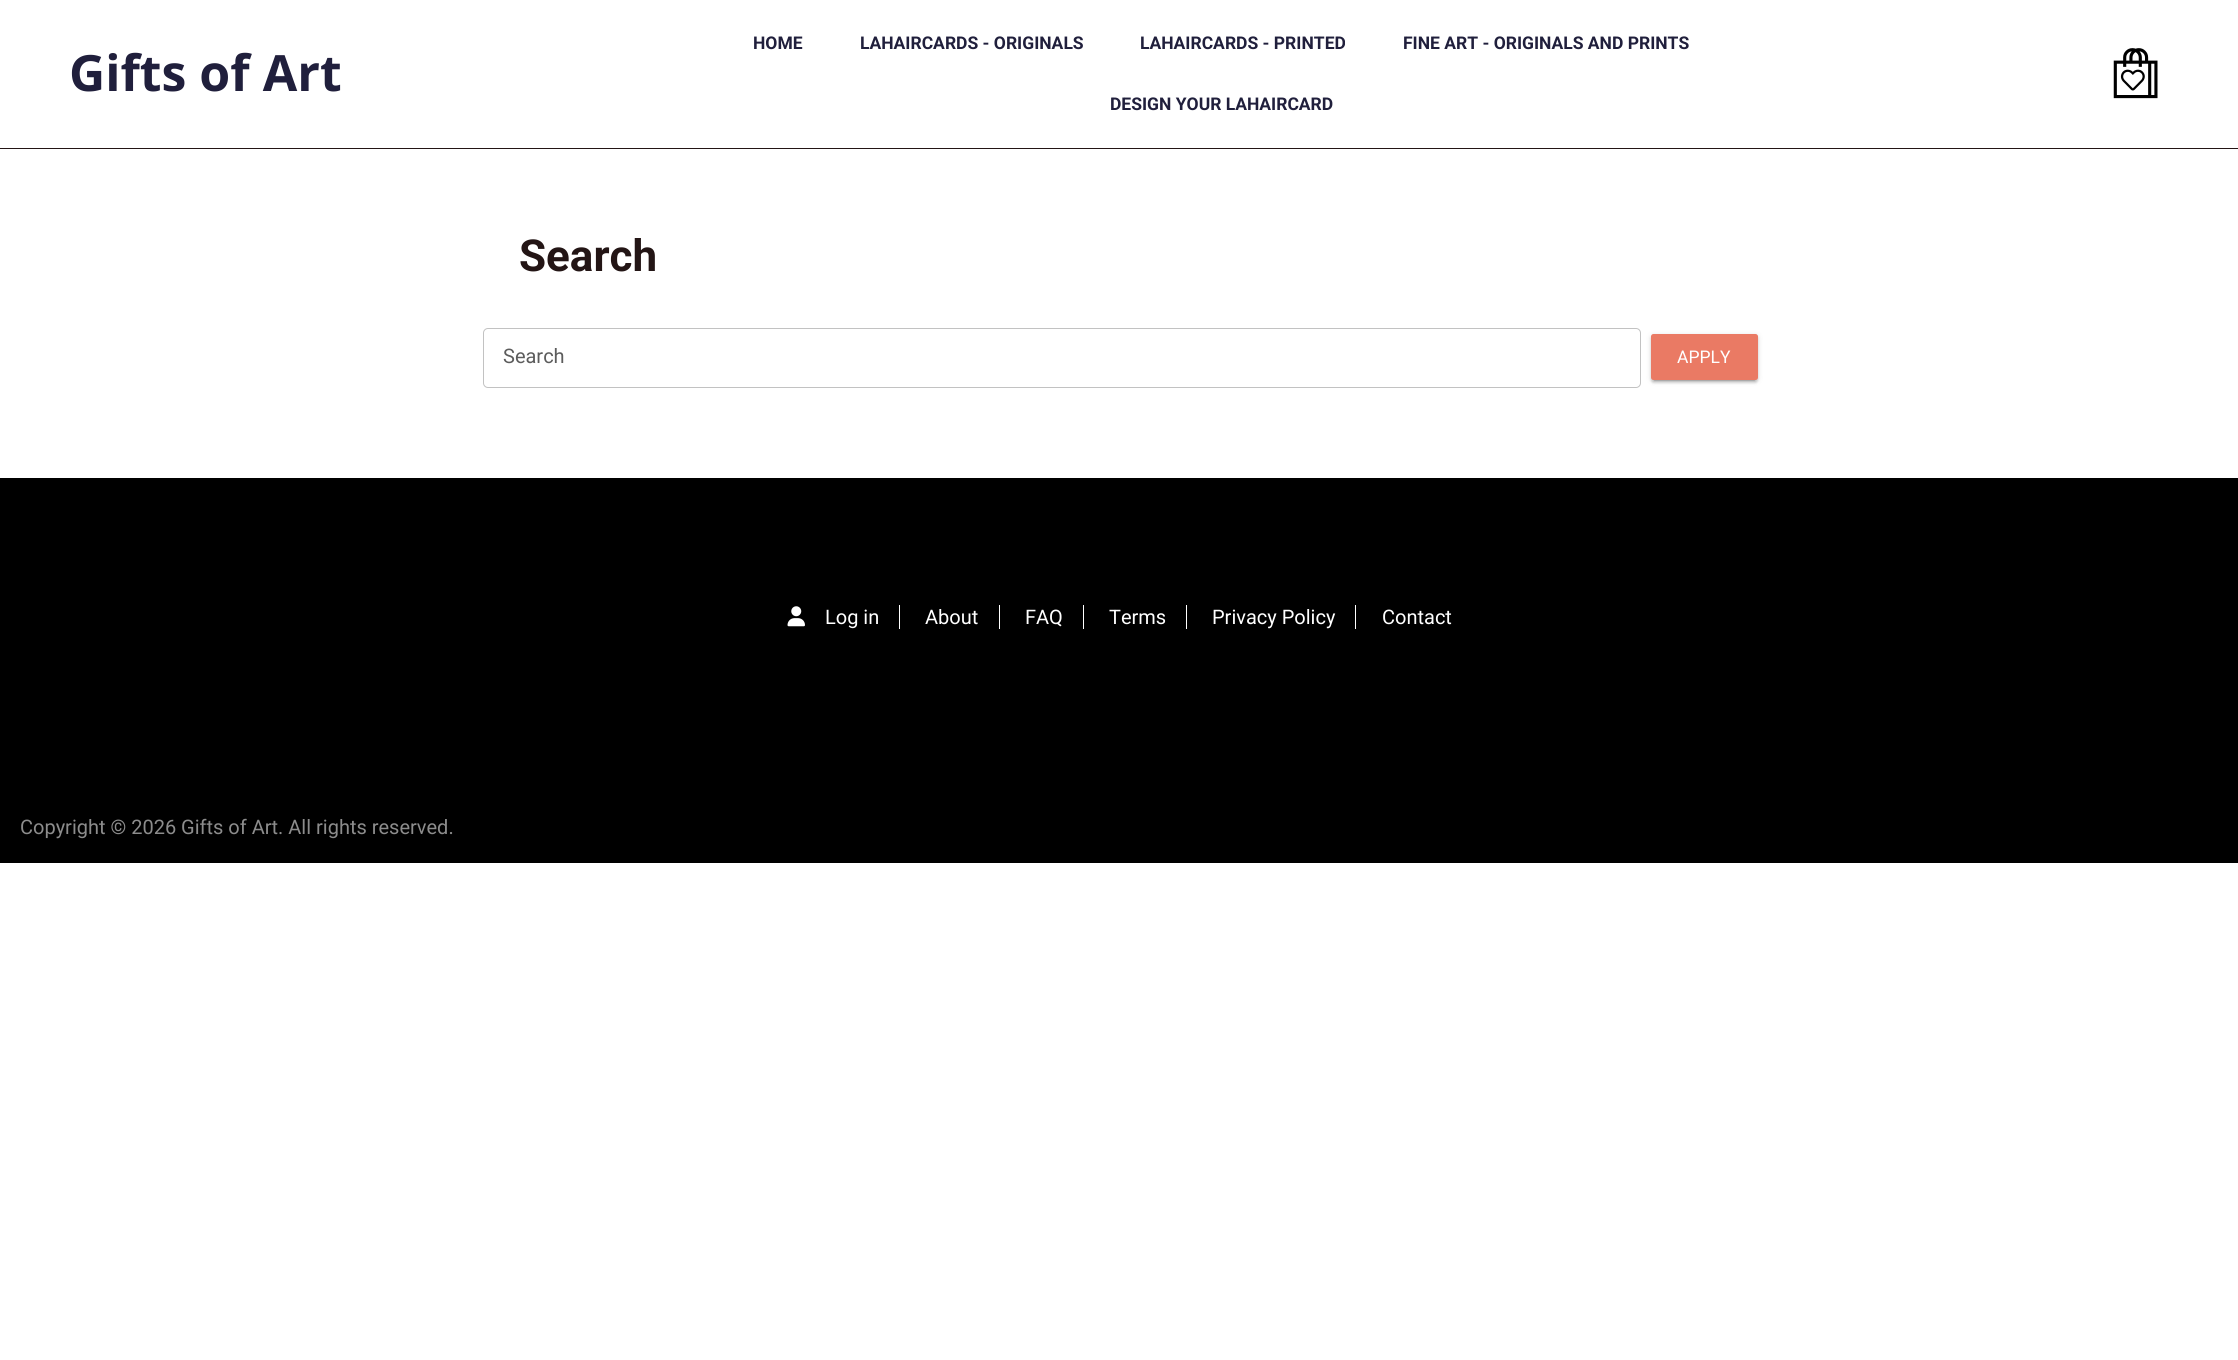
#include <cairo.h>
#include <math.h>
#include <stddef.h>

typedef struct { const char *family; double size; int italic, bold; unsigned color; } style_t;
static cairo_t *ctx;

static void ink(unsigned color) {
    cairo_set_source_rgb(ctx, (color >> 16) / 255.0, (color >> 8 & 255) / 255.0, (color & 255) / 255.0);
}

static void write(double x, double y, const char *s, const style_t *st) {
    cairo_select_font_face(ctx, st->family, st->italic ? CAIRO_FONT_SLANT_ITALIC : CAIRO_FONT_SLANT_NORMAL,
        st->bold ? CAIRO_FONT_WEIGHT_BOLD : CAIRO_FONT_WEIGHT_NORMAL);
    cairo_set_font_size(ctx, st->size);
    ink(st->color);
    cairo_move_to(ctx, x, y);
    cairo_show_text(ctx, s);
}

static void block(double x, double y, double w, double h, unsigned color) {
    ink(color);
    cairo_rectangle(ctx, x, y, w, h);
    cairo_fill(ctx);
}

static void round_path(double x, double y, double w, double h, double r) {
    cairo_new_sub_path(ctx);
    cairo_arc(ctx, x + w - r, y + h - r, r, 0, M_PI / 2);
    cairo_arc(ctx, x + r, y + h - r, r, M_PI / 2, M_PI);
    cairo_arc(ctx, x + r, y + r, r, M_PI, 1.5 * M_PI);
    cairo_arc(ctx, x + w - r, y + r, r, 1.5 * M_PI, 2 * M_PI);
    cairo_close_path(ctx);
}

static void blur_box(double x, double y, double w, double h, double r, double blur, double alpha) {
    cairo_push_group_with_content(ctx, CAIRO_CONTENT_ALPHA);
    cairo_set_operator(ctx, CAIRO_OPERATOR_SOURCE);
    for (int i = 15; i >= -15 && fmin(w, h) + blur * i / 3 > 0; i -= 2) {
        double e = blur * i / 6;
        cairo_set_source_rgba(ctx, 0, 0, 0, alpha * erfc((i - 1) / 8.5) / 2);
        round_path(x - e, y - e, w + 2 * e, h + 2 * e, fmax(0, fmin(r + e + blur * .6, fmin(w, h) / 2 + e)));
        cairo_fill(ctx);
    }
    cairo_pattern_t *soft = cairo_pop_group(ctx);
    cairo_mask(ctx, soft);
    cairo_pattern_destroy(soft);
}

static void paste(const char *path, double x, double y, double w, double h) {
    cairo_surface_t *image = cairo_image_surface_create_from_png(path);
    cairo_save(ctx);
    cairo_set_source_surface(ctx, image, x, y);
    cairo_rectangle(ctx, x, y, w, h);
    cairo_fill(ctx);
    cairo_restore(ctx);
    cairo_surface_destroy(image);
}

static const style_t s1 = {"Open Sans", 50, 0, 1, 0x201f3c};
static const style_t s2 = {"Roboto", 17.5, 0, 1, 0x201f3c};
static const style_t s3 = {"Roboto", 44, 0, 1, 0x231515};
static const style_t s4 = {"Roboto", 20, 0, 0, 0x5c5c5c};
static const style_t s5 = {"Roboto", 17.5, 0, 0, 0xffffff};
static const style_t s6 = {"Roboto", 20, 0, 0, 0xffffff};
static const style_t s7 = {"Roboto", 20, 0, 0, 0x8c8c8c};

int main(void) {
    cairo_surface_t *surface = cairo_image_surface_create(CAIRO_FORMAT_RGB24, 2238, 1360);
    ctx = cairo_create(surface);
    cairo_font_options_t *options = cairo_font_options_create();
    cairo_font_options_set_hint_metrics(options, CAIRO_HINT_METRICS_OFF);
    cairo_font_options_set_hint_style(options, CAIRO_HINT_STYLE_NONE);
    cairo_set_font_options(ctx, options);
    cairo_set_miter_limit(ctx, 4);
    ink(0xffffff);
    cairo_paint(ctx);
    block(0, 148, 2238, 1, 0x231515);
    write(69, 91, "Gifts of Art", &s1);
    write(753, 49, "HOME", &s2);
    write(860, 49, "LAHAIRCARDS - ORIGINALS", &s2);
    write(1140, 49, "LAHAIRCARDS - PRINTED", &s2);
    write(1403, 49, "FINE ART - ORIGINALS AND PRINTS", &s2);
    write(1110, 110, "DESIGN YOUR LAHAIRCARD", &s2);
    paste("pic1.png", 2113, 48, 45, 51);
    write(519, 271, "Search", &s3);
    round_path(483.5, 328.5, 1157, 59, 4.5);
    ink(0xc2c2c2);
    cairo_set_line_width(ctx, 1);
    cairo_stroke(ctx);
    write(503, 363, "Search", &s4);
    ink(0x000000);
    blur_box(1651, 335, 107, 46, 2.5, 3, 0.12);
    blur_box(1651, 336, 107, 47, 2.5, 1, 0.14);
    blur_box(1654, 340, 101, 41, 0, 0.5, 0.2);
    ink(0xea7a64);
    round_path(1651, 334, 107, 46, 2.5);
    cairo_fill(ctx);
    write(1677, 363, "APPLY", &s5);
    block(0, 478, 2238, 385, 0x000000);
    paste("pic2.png", 787, 606, 18, 21);
    write(825, 624, "Log in", &s6);
    block(899, 605, 1, 24, 0xffffff);
    write(925, 624, "About", &s6);
    block(999, 605, 1, 24, 0xffffff);
    write(1025, 624, "FAQ", &s6);
    block(1083, 605, 1, 24, 0xffffff);
    write(1109, 624, "Terms", &s6);
    block(1186, 605, 1, 24, 0xffffff);
    write(1212, 624, "Privacy Policy", &s6);
    block(1355, 605, 1, 24, 0xffffff);
    write(1382, 624, "Contact", &s6);
    write(20, 834, "Copyright © 2026 Gifts of Art. All rights reserved.", &s7);
    cairo_surface_write_to_png(surface, "screenshot.png");
    cairo_font_options_destroy(options);
    cairo_destroy(ctx);
    cairo_surface_destroy(surface);
    return 0;
}
